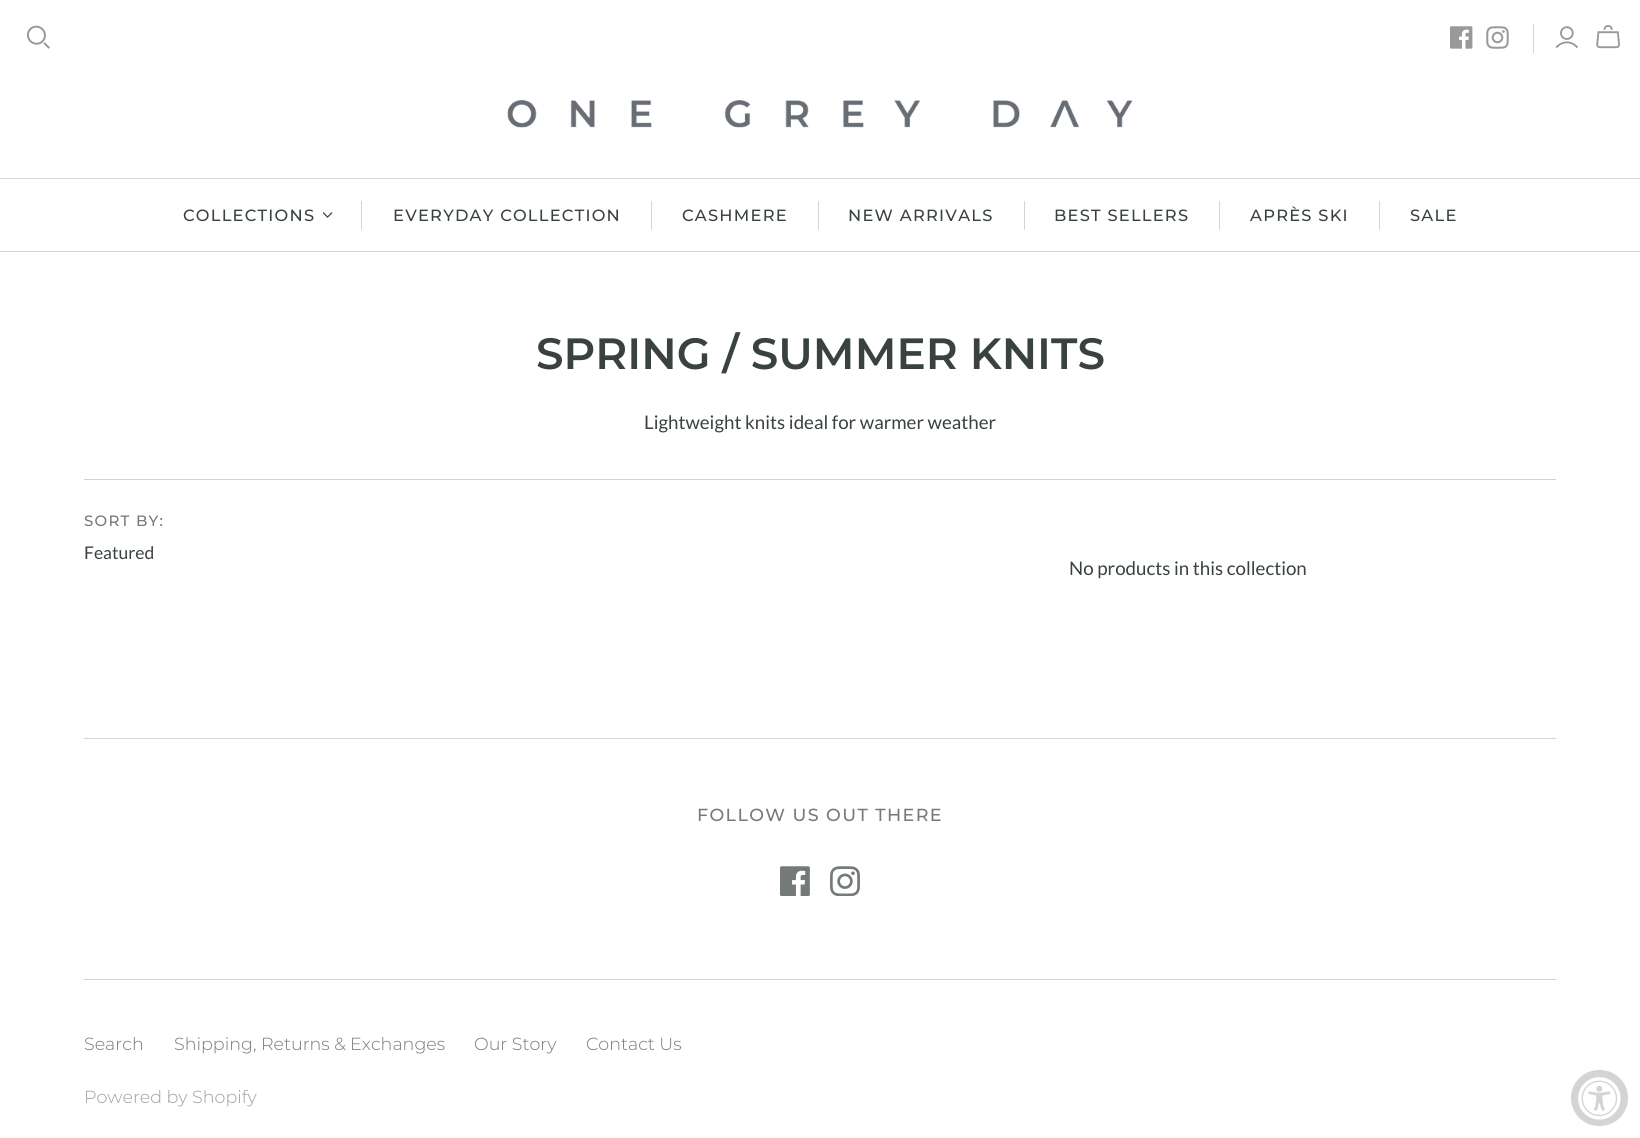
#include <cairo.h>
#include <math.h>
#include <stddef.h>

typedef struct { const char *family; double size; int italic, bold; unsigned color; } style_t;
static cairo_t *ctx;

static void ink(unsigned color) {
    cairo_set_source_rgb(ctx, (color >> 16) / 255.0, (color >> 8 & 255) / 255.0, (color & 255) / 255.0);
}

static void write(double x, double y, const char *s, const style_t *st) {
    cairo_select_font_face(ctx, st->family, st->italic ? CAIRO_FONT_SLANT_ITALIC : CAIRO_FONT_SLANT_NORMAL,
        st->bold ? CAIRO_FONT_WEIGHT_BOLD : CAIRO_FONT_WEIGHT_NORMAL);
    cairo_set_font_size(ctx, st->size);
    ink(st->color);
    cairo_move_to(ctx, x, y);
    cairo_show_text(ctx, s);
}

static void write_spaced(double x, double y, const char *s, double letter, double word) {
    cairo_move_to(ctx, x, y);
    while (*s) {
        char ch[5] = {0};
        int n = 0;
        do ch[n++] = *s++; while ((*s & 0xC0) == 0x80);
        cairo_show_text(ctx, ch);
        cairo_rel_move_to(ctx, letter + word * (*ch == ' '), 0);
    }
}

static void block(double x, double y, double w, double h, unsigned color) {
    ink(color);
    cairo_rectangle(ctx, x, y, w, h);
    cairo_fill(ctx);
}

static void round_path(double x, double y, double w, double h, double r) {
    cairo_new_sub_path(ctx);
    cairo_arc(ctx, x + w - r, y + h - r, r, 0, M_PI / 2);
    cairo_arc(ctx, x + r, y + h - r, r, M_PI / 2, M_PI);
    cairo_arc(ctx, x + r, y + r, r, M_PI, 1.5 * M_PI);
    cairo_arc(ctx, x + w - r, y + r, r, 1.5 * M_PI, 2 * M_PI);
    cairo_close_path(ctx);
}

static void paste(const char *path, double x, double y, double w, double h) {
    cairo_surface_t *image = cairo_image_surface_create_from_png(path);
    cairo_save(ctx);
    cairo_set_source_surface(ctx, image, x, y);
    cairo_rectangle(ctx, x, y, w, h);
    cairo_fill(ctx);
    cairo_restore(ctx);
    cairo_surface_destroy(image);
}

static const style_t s1 = {"Montserrat SemiBold", 43.75, 0, 0, 0x39423d};
static const style_t s2 = {"Lato", 18.75, 0, 0, 0x39423d};
static const style_t s3 = {"Lato", 17.5, 0, 0, 0x39423d};
static const style_t s4 = {"Montserrat Light", 17.5, 0, 0, 0x747a77};
static const style_t s5 = {"Montserrat Light", 17.5, 0, 0, 0x9ca09e};

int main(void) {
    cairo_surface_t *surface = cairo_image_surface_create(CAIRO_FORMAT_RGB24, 1640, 1138);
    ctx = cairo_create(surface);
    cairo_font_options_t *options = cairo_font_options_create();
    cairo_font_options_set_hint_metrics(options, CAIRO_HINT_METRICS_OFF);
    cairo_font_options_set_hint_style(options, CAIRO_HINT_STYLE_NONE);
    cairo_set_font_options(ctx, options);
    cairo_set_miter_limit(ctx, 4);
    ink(0xffffff);
    cairo_paint(ctx);
    paste("pic1.png", 26, 25, 24, 24);
    paste("pic2.png", 1450, 26, 23, 23);
    paste("pic3.png", 1486, 26, 23, 23);
    block(1533, 24, 1, 29, 0xd4d4d4);
    paste("pic4.png", 1555, 26, 23, 22);
    paste("pic5.png", 1596, 25, 24, 24);
    paste("pic6.png", 507, 100, 626, 28);
    block(0, 178, 1640, 1, 0xd4d4d4);
    block(0, 251, 1640, 1, 0xd4d4d4);
    cairo_select_font_face(ctx, "Montserrat Medium", CAIRO_FONT_SLANT_NORMAL, CAIRO_FONT_WEIGHT_NORMAL);
    cairo_set_font_size(ctx, 16.25);
    ink(0x39423d);
    write_spaced(183, 221, "COLLECTIONS", 1.25, 0);
    paste("pic7.png", 323, 212, 10, 6);
    block(361, 201, 1, 29, 0xd4d4d4);
    ink(0x39423d);
    write_spaced(393, 221, "EVERYDAY COLLECTION", 1.25, 0);
    block(651, 201, 1, 29, 0xd4d4d4);
    ink(0x39423d);
    write_spaced(682, 221, "CASHMERE", 1.25, 0);
    block(818, 201, 1, 29, 0xd4d4d4);
    ink(0x39423d);
    write_spaced(848, 221, "NEW ARRIVALS", 1.25, 0);
    block(1024, 201, 1, 29, 0xd4d4d4);
    ink(0x39423d);
    write_spaced(1054, 221, "BEST SELLERS", 1.25, 0);
    block(1219, 201, 1, 29, 0xd4d4d4);
    ink(0x39423d);
    write_spaced(1250, 221, "APRÈS SKI", 1.25, 0);
    block(1379, 201, 1, 29, 0xd4d4d4);
    ink(0x39423d);
    write_spaced(1410, 221, "SALE", 1.25, 0);
    block(84, 479, 1472, 1, 0xd4d4d4);
    write(536, 369, "SPRING / SUMMER KNITS", &s1);
    write(644, 429, "Lightweight knits ideal for warmer weather", &s2);
    cairo_select_font_face(ctx, "Montserrat Medium", CAIRO_FONT_SLANT_NORMAL, CAIRO_FONT_WEIGHT_NORMAL);
    cairo_set_font_size(ctx, 15);
    ink(0x747a77);
    write_spaced(84, 526, "SORT BY:", 1.25, 0);
    write(84, 559, "Featured", &s3);
    write(1069, 575, "No products in this collection", &s2);
    block(84, 738, 1472, 1, 0xd4d4d4);
    block(84, 979, 1472, 1, 0xd4d4d4);
    cairo_select_font_face(ctx, "Montserrat Medium", CAIRO_FONT_SLANT_NORMAL, CAIRO_FONT_WEIGHT_NORMAL);
    cairo_set_font_size(ctx, 17.5);
    ink(0x747a77);
    write_spaced(697, 821, "FOLLOW US OUT THERE", 1.4, 0);
    paste("pic8.png", 780, 866, 30, 30);
    paste("pic9.png", 830, 866, 30, 30);
    write(84, 1050, "Search", &s4);
    write(174, 1050, "Shipping, Returns & Exchanges", &s4);
    write(474, 1050, "Our Story", &s4);
    write(586, 1050, "Contact Us", &s4);
    write(84, 1103, "Powered by Shopify", &s5);
    ink(0xd4d4d4);
    round_path(1571, 1070, 57, 56, 28);
    cairo_fill(ctx);
    paste("pic10.png", 1578, 1077, 43, 43);
    cairo_surface_write_to_png(surface, "screenshot.png");
    cairo_font_options_destroy(options);
    cairo_destroy(ctx);
    cairo_surface_destroy(surface);
    return 0;
}
